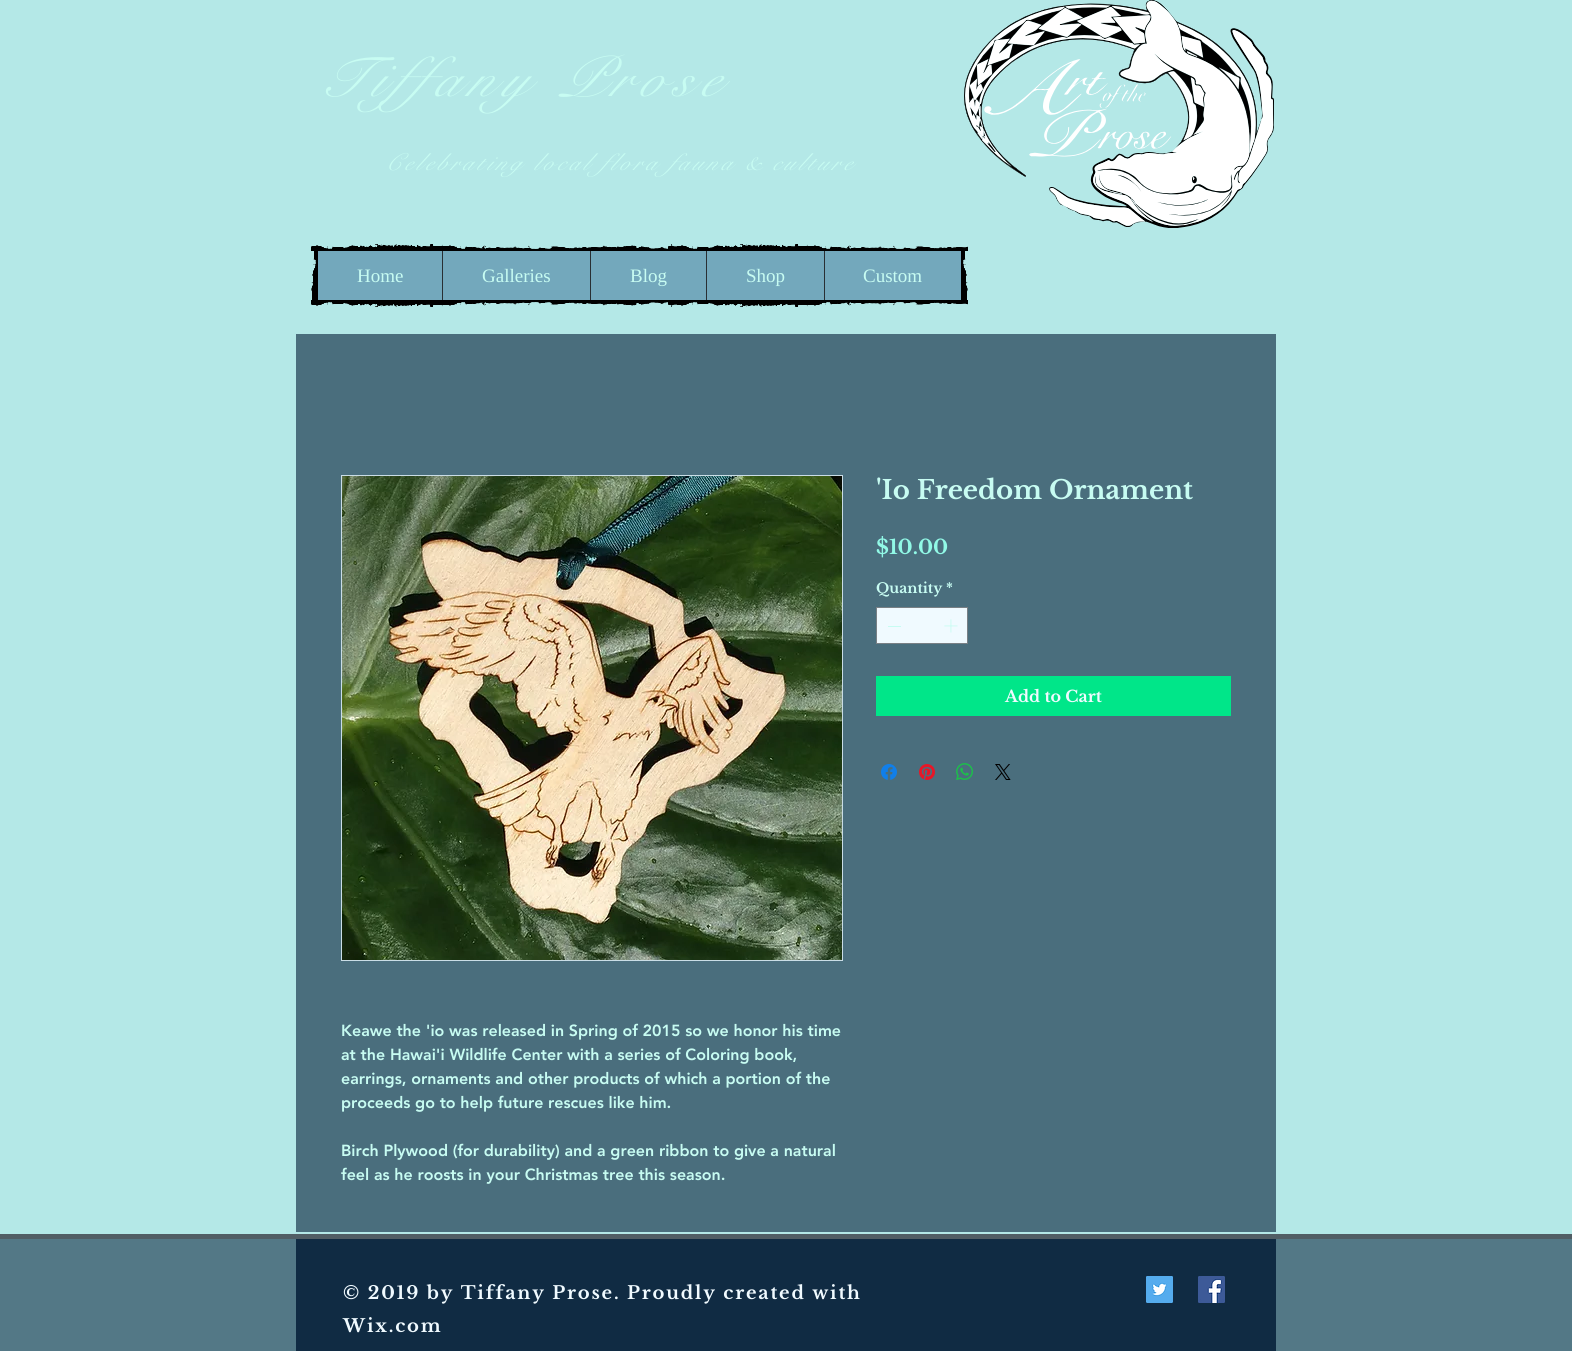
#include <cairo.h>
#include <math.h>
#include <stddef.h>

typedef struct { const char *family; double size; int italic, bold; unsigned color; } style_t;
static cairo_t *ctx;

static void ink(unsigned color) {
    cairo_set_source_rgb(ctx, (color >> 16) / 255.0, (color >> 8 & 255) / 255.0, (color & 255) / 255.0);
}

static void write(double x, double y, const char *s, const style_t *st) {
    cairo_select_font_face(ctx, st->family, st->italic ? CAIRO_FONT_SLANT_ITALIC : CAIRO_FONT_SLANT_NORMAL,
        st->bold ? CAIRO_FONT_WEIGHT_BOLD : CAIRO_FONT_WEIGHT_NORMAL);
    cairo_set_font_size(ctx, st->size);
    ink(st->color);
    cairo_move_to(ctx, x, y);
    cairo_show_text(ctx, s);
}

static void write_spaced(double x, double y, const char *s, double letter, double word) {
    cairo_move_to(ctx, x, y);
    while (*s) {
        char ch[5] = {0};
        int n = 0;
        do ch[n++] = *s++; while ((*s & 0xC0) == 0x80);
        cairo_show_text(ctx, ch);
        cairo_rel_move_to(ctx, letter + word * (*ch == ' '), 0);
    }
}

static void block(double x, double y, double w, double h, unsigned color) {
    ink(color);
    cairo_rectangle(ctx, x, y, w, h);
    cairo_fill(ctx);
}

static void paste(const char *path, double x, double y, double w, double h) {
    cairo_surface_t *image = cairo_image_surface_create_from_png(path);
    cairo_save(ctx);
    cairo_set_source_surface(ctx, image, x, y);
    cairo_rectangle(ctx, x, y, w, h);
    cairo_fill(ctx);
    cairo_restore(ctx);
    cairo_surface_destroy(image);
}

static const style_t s1 = {"Liberation Serif", 19, 0, 0, 0xc7fcf2};
static const style_t s2 = {"Libre Baskerville", 26, 0, 1, 0xc7fcf2};
static const style_t s3 = {"Libre Baskerville", 20, 0, 1, 0x91f9e6};
static const style_t s4 = {"Libre Baskerville", 14, 0, 1, 0xc7fcf2};
static const style_t s5 = {"Libre Baskerville", 16, 0, 1, 0xf0faff};
static const style_t s6 = {"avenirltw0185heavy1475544 Black", 16, 0, 0, 0xc7fcf2};

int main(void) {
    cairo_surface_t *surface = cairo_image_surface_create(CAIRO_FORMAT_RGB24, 1572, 1351);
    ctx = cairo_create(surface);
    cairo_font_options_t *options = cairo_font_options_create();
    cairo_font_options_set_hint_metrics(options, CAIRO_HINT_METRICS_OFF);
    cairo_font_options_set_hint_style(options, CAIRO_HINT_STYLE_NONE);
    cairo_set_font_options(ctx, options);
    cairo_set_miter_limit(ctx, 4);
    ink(0xb4e8e7);
    cairo_paint(ctx);
    cairo_select_font_face(ctx, "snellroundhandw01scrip", CAIRO_FONT_SLANT_ITALIC, CAIRO_FONT_WEIGHT_NORMAL);
    cairo_set_font_size(ctx, 57);
    ink(0xc7fcf2);
    write_spaced(318, 96, "Tiffany Prose", 8.5, 0);
    cairo_set_font_size(ctx, 24);
    write_spaced(385, 170, "Celebrating local flora fauna & culture", 3.6, 0);
    paste("pic1.png", 964, 0, 310, 228);
    paste("pic2.png", 311, 244, 657, 7);
    paste("pic3.png", 311, 251, 7, 49);
    block(318, 251, 643, 49, 0x73a8bc);
    write(357, 282, "Home", &s1);
    block(442, 251, 1, 49, 0x292f33);
    write(482, 282, "Galleries", &s1);
    block(590, 251, 1, 49, 0x292f33);
    write(630, 282, "Blog", &s1);
    block(706, 251, 1, 49, 0x292f33);
    write(746, 282, "Shop", &s1);
    block(824, 251, 1, 49, 0x292f33);
    write(863, 282, "Custom", &s1);
    paste("pic4.png", 961, 251, 7, 49);
    paste("pic5.png", 311, 300, 657, 7);
    block(296, 334, 980, 898, 0x4a6e7d);
    write(876, 499, "'Io Freedom Ornament", &s2);
    write(876, 554, "$10.00", &s3);
    write(876, 593, "Quantity *", &s4);
    ink(0xf0faff);
    cairo_rectangle(ctx, 876.5, 607.5, 91, 36);
    cairo_fill_preserve(ctx);
    ink(0x798085);
    cairo_set_line_width(ctx, 1);
    cairo_stroke(ctx);
    block(888, 626, 13, 1, 0xc7fcf2);
    paste("pic6.png", 944, 619, 14, 14);
    block(876, 676, 355, 40, 0x00e689);
    write(1005, 702, "Add to Cart", &s5);
    paste("pic7.png", 881, 764, 16, 16);
    paste("pic8.png", 919, 764, 16, 16);
    paste("pic9.png", 956, 763, 17, 17);
    paste("pic10.png", 995, 764, 16, 16);
    cairo_rectangle(ctx, 341.5, 475.5, 501, 485);
    ink(0xcadde6);
    cairo_stroke(ctx);
    paste("pic11.png", 342, 476, 500, 484);
    write(341, 1036, "Keawe the 'io was released in Spring of 2015 so we honor his time", &s6);
    write(341, 1060, "at the Hawai'i Wildlife Center with a series of Coloring book,", &s6);
    write(341, 1084, "earrings, ornaments and other products of which a portion of the", &s6);
    write(341, 1108, "proceeds go to help future rescues like him.", &s6);
    write(341, 1156, "Birch Plywood (for durability) and a green ribbon to give a natural", &s6);
    write(341, 1180, "feel as he roosts in your Christmas tree this season.", &s6);
    block(0, 1239, 1572, 112, 0x537886);
    block(0, 1234, 1572, 5, 0x515e65);
    block(296, 1239, 980, 112, 0x102b43);
    cairo_select_font_face(ctx, "Libre Baskerville", CAIRO_FONT_SLANT_NORMAL, CAIRO_FONT_WEIGHT_BOLD);
    cairo_set_font_size(ctx, 18);
    ink(0xf0faff);
    write_spaced(343, 1299, "© 2019 by Tiffany Prose. Proudly created with", 1.8, 0);
    write_spaced(343, 1332, "Wix.com", 1.8, 0);
    paste("pic12.png", 1146, 1276, 27, 27);
    paste("pic13.png", 1198, 1276, 27, 27);
    cairo_surface_write_to_png(surface, "screenshot.png");
    cairo_font_options_destroy(options);
    cairo_destroy(ctx);
    cairo_surface_destroy(surface);
    return 0;
}
